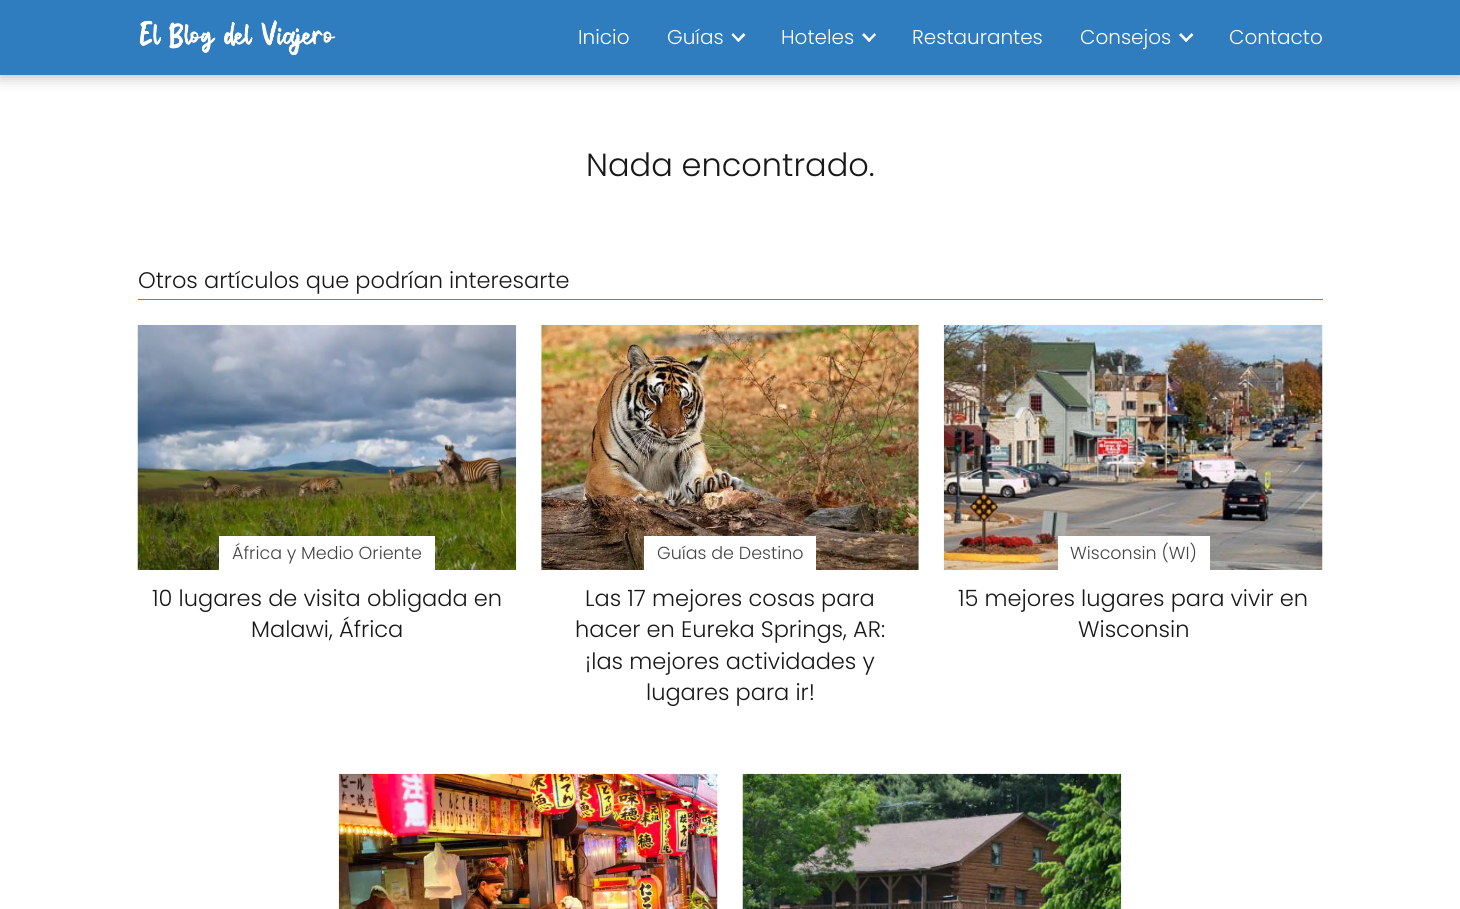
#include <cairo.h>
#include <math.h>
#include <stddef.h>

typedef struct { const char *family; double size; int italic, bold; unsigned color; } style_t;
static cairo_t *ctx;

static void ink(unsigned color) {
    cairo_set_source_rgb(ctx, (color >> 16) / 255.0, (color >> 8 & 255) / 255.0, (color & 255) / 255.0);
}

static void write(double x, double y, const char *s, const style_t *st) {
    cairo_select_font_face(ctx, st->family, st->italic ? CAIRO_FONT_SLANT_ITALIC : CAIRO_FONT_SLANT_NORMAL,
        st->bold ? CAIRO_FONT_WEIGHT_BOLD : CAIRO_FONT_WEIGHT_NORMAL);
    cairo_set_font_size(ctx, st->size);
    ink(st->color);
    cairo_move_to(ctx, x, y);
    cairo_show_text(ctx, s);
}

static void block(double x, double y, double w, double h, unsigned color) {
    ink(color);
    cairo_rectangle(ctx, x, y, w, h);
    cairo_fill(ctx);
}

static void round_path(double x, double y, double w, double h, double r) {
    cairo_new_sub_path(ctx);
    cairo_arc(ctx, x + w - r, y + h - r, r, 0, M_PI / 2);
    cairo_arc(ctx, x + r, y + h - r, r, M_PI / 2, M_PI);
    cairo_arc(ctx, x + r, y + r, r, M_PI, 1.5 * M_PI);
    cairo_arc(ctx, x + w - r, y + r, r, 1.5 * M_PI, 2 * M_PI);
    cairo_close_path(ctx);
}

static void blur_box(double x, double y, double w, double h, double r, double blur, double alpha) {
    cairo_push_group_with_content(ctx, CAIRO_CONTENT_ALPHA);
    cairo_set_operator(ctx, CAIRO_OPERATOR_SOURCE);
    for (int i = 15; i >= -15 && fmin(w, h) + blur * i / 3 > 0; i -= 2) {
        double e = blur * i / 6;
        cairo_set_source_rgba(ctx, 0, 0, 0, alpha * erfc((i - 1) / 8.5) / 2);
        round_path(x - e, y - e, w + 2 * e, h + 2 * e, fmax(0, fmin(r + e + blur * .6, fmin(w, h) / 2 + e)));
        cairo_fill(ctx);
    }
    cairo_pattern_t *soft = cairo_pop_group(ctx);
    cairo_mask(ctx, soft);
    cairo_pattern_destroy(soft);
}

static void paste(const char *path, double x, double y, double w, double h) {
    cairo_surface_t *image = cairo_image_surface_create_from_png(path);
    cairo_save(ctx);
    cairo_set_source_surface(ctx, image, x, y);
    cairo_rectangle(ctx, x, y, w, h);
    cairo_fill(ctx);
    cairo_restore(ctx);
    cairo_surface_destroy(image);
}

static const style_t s1 = {"Poppins Light", 20, 0, 0, 0xffffff};
static const style_t s2 = {"Poppins Light", 32, 0, 0, 0x181818};
static const style_t s3 = {"Poppins Light", 22.5, 0, 0, 0x181818};
static const style_t s4 = {"Poppins Light", 17.5, 0, 0, 0x444444};

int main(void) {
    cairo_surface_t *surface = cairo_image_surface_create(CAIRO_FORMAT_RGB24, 1460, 909);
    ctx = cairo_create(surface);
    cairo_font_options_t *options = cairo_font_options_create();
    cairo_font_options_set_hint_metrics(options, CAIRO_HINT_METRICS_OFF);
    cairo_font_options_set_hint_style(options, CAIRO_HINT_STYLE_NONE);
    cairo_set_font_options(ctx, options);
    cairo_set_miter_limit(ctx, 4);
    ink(0xffffff);
    cairo_paint(ctx);
    ink(0x000000);
    blur_box(0, 1, 1460, 75, 0, 7.5, 0.3);
    block(0, 0, 1460, 75, 0x2f7cbf);
    paste("pic1.png", 139, 20, 197, 36);
    write(578, 44, "Inicio", &s1);
    write(667, 44, "Guías", &s1);
    cairo_new_path(ctx);
    cairo_move_to(ctx, 743.5, 33);
    cairo_line_to(ctx, 745.5, 35);
    cairo_line_to(ctx, 738.5, 42);
    cairo_line_to(ctx, 736.5, 40.5);
    cairo_close_path(ctx);
    cairo_fill(ctx);
    cairo_new_path(ctx);
    cairo_move_to(ctx, 733, 33);
    cairo_line_to(ctx, 740, 40.5);
    cairo_line_to(ctx, 738.5, 42);
    cairo_line_to(ctx, 731.5, 35);
    cairo_close_path(ctx);
    cairo_fill(ctx);
    write(781, 44, "Hoteles", &s1);
    cairo_new_path(ctx);
    cairo_move_to(ctx, 874.5, 33);
    cairo_line_to(ctx, 876, 35);
    cairo_line_to(ctx, 869, 42);
    cairo_line_to(ctx, 867.5, 40.5);
    cairo_close_path(ctx);
    cairo_fill(ctx);
    cairo_new_path(ctx);
    cairo_move_to(ctx, 864, 33);
    cairo_line_to(ctx, 871, 40.5);
    cairo_line_to(ctx, 869, 42);
    cairo_line_to(ctx, 862, 35);
    cairo_close_path(ctx);
    cairo_fill(ctx);
    write(912, 44, "Restaurantes", &s1);
    write(1080, 44, "Consejos", &s1);
    cairo_new_path(ctx);
    cairo_move_to(ctx, 1191.5, 33);
    cairo_line_to(ctx, 1193.5, 35);
    cairo_line_to(ctx, 1186, 42);
    cairo_line_to(ctx, 1184.5, 40.5);
    cairo_close_path(ctx);
    cairo_fill(ctx);
    cairo_new_path(ctx);
    cairo_move_to(ctx, 1181, 33);
    cairo_line_to(ctx, 1188, 40.5);
    cairo_line_to(ctx, 1186, 42);
    cairo_line_to(ctx, 1179, 35);
    cairo_close_path(ctx);
    cairo_fill(ctx);
    write(1229, 44, "Contacto", &s1);
    write(586, 176, "Nada encontrado.", &s2);
    block(138, 299, 1185, 1, 0x508bbf);
    write(138, 288, "Otros artículos que podrían interesarte", &s3);
    paste("pic2.png", 137, 325, 380, 245);
    block(219, 536, 216, 34, 0xffffff);
    write(232, 559, "África y Medio Oriente", &s4);
    write(152, 606, "10 lugares de visita obligada en", &s3);
    write(251, 637, "Malawi, África", &s3);
    paste("pic3.png", 541, 325, 378, 245);
    block(644, 536, 172, 34, 0xffffff);
    write(657, 559, "Guías de Destino", &s4);
    write(585, 606, "Las 17 mejores cosas para", &s3);
    write(575, 637, "hacer en Eureka Springs, AR:", &s3);
    write(585, 669, "¡las mejores actividades y", &s3);
    write(646, 700, "lugares para ir!", &s3);
    paste("pic4.png", 943, 325, 380, 245);
    block(1058, 536, 152, 34, 0xffffff);
    write(1070, 559, "Wisconsin (WI)", &s4);
    write(958, 606, "15 mejores lugares para vivir en", &s3);
    write(1078, 637, "Wisconsin", &s3);
    paste("pic5.png", 338, 773, 380, 136);
    paste("pic6.png", 742, 773, 380, 136);
    cairo_surface_write_to_png(surface, "screenshot.png");
    cairo_font_options_destroy(options);
    cairo_destroy(ctx);
    cairo_surface_destroy(surface);
    return 0;
}
